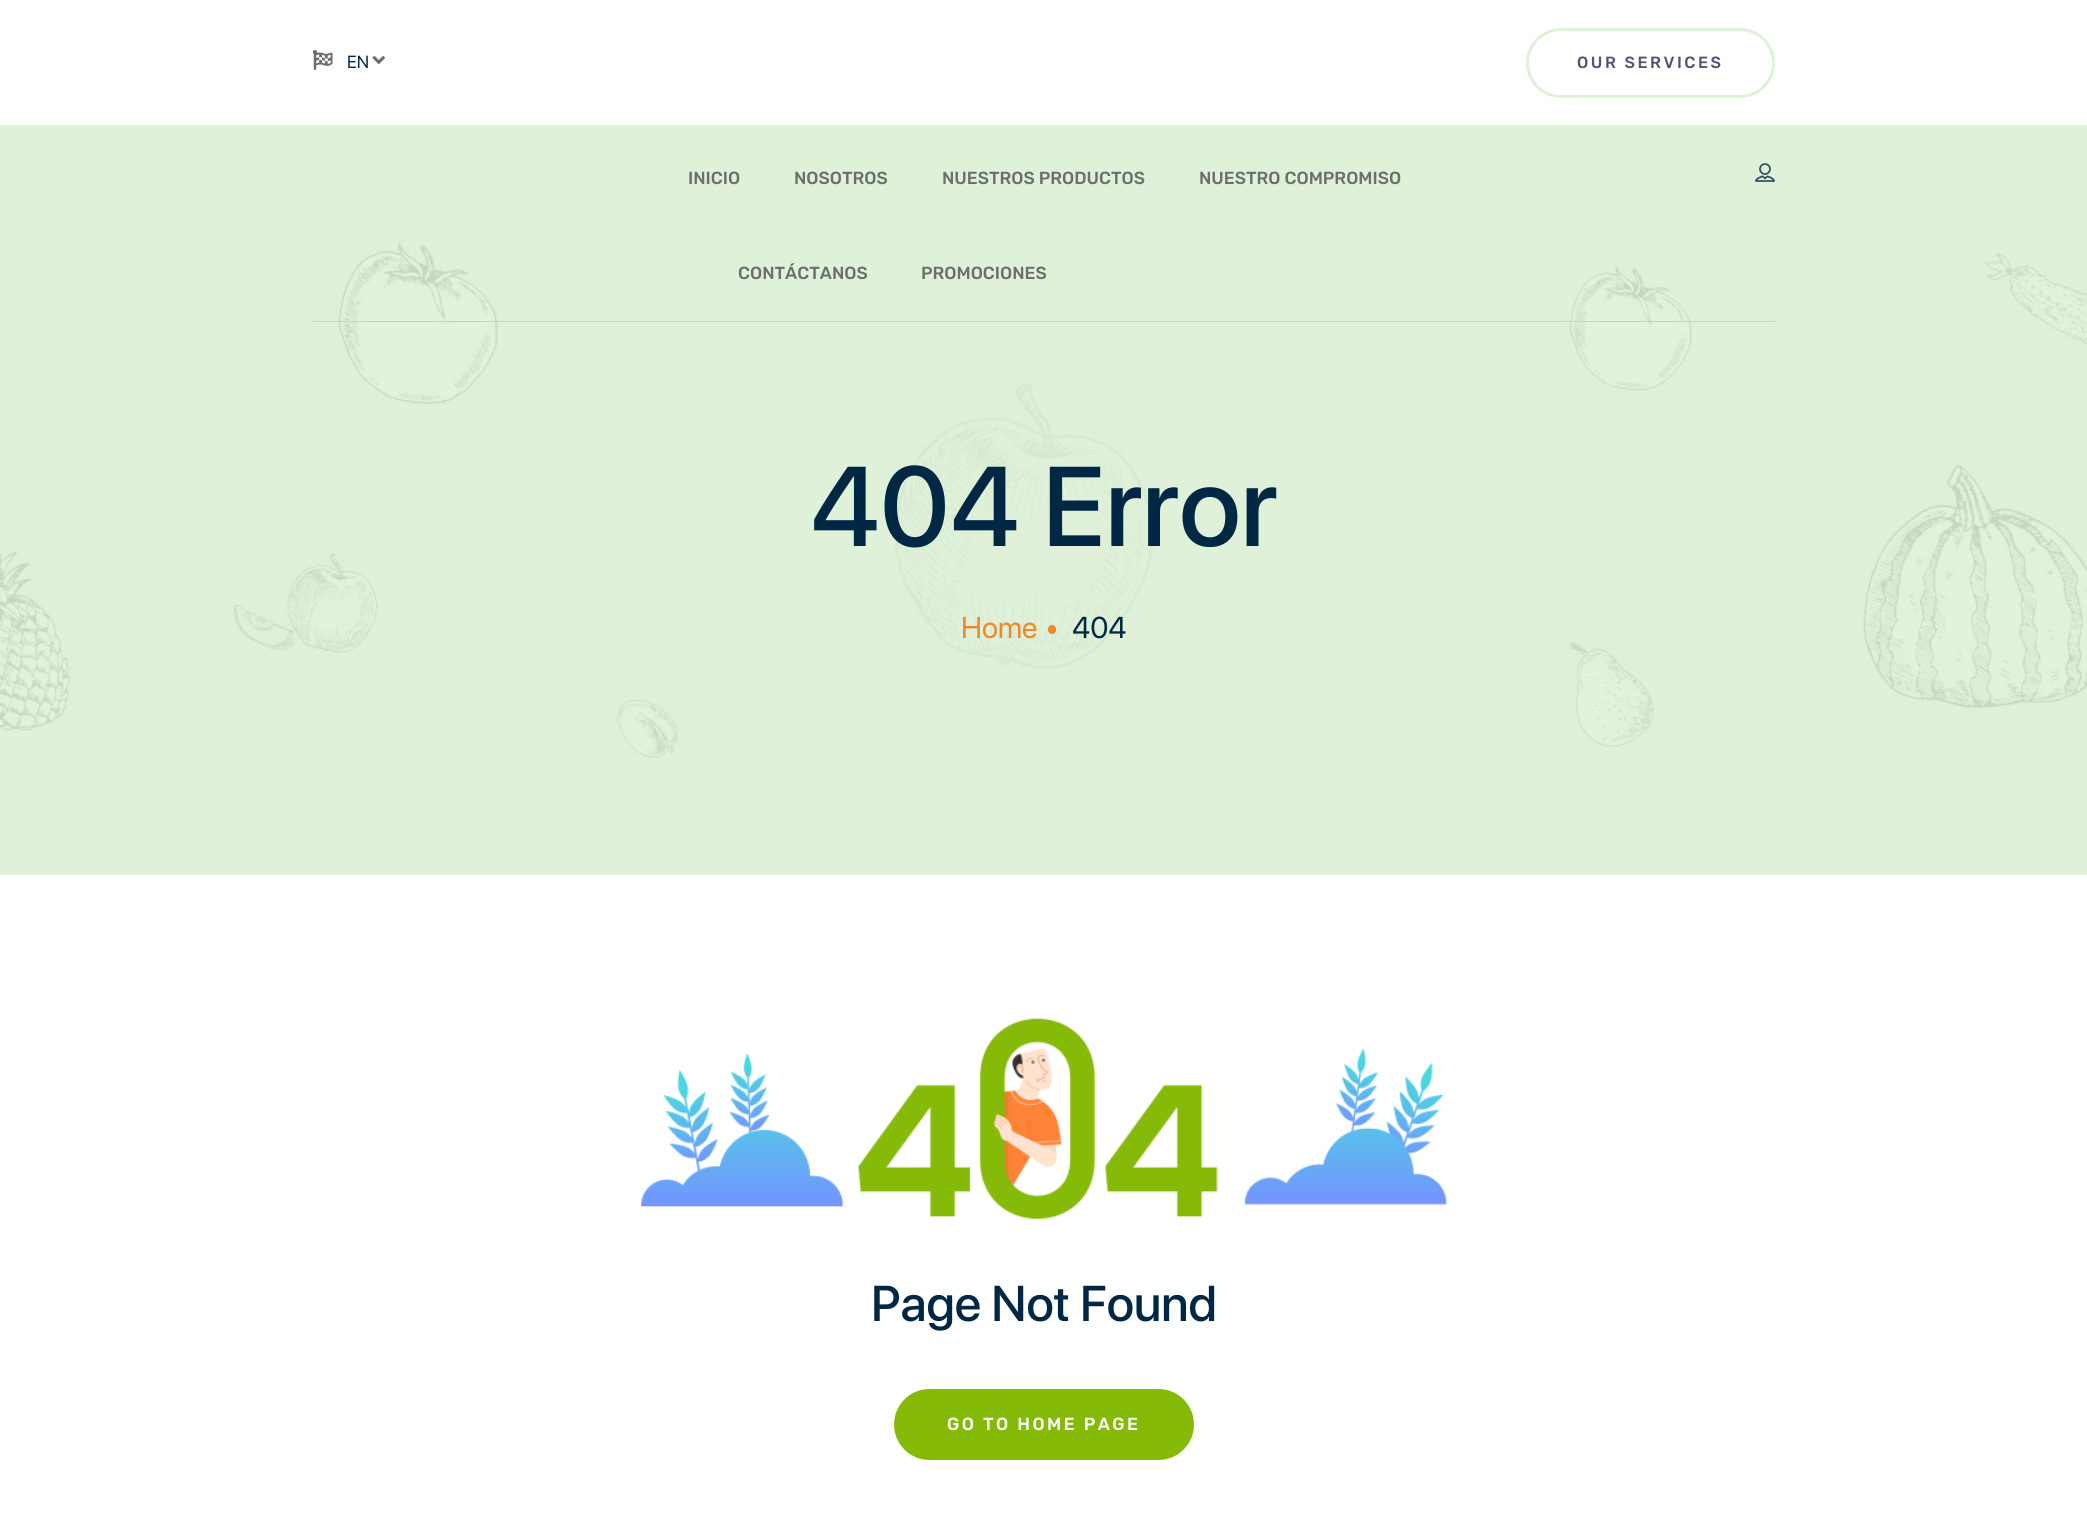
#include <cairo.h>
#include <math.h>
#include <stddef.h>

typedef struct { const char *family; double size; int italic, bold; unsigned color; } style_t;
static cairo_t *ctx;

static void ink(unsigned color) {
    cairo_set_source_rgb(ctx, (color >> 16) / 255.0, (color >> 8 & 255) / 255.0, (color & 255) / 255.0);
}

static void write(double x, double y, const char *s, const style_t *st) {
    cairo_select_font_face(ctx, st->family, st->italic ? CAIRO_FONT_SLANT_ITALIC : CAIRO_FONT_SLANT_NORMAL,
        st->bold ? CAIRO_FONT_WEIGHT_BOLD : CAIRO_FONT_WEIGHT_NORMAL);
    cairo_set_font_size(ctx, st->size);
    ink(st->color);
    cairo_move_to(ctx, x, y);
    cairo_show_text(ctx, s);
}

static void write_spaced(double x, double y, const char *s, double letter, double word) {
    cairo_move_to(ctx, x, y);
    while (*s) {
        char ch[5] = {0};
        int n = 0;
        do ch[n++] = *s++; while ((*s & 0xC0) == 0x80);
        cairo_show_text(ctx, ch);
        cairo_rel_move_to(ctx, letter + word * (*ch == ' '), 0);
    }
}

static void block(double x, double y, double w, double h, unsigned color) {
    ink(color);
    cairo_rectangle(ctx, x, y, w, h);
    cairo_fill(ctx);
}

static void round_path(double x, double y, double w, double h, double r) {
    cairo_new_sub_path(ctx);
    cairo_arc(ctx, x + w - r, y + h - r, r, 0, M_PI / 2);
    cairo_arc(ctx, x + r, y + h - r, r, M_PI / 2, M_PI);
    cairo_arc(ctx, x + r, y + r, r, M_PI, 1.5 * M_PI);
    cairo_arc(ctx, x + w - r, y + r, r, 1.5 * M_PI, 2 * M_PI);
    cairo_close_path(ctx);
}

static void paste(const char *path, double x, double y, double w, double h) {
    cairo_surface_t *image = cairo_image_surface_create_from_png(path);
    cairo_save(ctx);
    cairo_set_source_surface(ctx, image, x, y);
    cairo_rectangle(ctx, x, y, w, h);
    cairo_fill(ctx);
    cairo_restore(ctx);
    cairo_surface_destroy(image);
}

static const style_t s1 = {"SF Pro Display", 17.5, 0, 0, 0x002845};
static const style_t s2 = {"Rubik Medium", 17.5, 0, 0, 0x6e6e6e};
static const style_t s3 = {"SF Pro Display Medium", 112.5, 0, 0, 0x002845};
static const style_t s4 = {"SF Pro Display", 30, 0, 0, 0xef8829};
static const style_t s5 = {"SF Pro Display", 30, 0, 0, 0x002845};
static const style_t s6 = {"SF Pro Display Medium", 50, 0, 0, 0x002845};

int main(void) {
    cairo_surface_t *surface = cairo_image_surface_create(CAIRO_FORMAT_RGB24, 2087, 1529);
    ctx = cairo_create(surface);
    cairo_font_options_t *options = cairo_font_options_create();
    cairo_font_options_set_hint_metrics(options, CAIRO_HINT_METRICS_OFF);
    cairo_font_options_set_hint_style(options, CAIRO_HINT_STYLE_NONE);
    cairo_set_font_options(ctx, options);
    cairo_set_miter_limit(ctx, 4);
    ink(0xffffff);
    cairo_paint(ctx);
    paste("pic1.png", 312, 50, 21, 20);
    write(347, 68, "EN", &s1);
    paste("pic2.png", 372, 56, 13, 8);
    round_path(1527.5, 29.5, 246, 67, 33.5);
    ink(0xdff1d8);
    cairo_set_line_width(ctx, 3);
    cairo_stroke(ctx);
    cairo_select_font_face(ctx, "Rubik Medium", CAIRO_FONT_SLANT_NORMAL, CAIRO_FONT_WEIGHT_NORMAL);
    cairo_set_font_size(ctx, 16.25);
    ink(0x525470);
    write_spaced(1577, 68, "OUR SERVICES", 2.5, 0);
    paste("pic4.png", 0, 125, 2087, 750);
    block(313, 321, 1462, 1, 0xc4d9bb);
    write(688, 184, "INICIO", &s2);
    write(794, 184, "NOSOTROS", &s2);
    write(942, 184, "NUESTROS PRODUCTOS", &s2);
    write(1199, 184, "NUESTRO COMPROMISO", &s2);
    write(738, 279, "CONTÁCTANOS", &s2);
    write(921, 279, "PROMOCIONES", &s2);
    paste("pic3.png", 1755, 163, 20, 19);
    write(810, 546, "404 Error", &s3);
    write(961, 638, "Home", &s4);
    round_path(1048, 625, 8, 9, 4);
    cairo_fill(ctx);
    write(1072, 638, "404", &s5);
    paste("pic5.png", 641, 1018, 806, 201);
    write(871, 1321, "Page Not Found", &s6);
    ink(0x86ba09);
    round_path(894, 1389, 300, 71, 35.5);
    cairo_fill(ctx);
    cairo_select_font_face(ctx, "Rubik Medium", CAIRO_FONT_SLANT_NORMAL, CAIRO_FONT_WEIGHT_NORMAL);
    cairo_set_font_size(ctx, 17.5);
    ink(0xffffff);
    write_spaced(947, 1430, "GO TO HOME PAGE", 2.5, 0);
    cairo_surface_write_to_png(surface, "screenshot.png");
    cairo_font_options_destroy(options);
    cairo_destroy(ctx);
    cairo_surface_destroy(surface);
    return 0;
}
